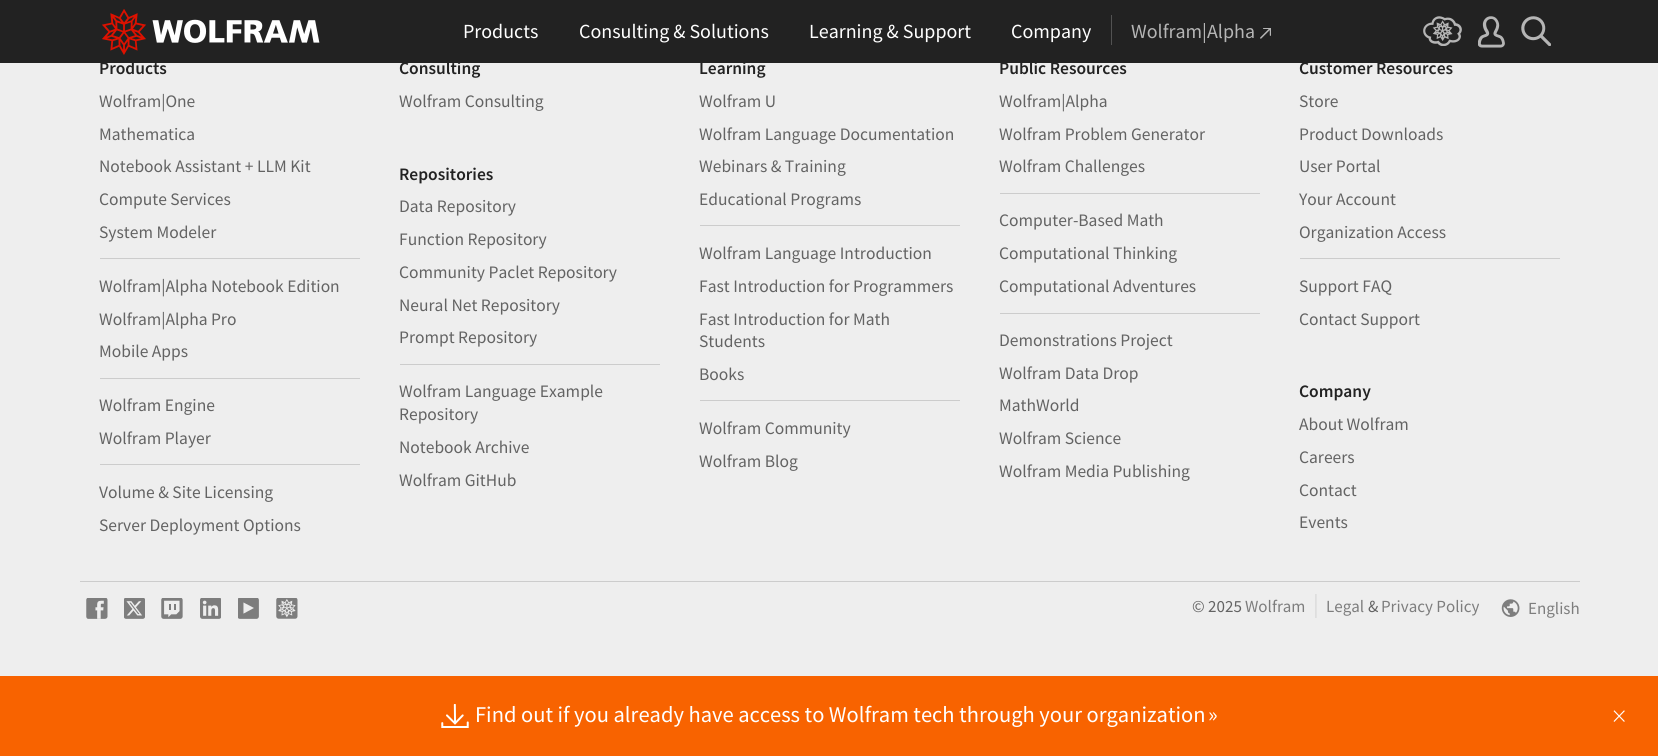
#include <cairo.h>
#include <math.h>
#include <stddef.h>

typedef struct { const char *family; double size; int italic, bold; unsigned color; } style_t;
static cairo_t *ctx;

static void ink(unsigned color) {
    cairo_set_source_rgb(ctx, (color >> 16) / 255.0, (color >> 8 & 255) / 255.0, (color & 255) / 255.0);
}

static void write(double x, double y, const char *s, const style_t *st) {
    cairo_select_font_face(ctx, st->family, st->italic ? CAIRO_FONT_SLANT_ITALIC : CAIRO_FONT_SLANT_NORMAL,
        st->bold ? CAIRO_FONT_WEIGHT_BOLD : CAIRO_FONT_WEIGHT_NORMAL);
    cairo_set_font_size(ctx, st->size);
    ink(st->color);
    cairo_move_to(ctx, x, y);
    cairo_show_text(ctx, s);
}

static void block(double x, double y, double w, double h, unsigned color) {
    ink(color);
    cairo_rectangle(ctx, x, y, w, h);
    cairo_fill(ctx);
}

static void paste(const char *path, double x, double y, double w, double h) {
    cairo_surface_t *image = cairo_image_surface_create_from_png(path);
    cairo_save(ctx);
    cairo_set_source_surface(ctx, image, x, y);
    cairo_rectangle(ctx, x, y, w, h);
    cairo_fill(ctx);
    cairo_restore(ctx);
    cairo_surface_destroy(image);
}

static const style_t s1 = {"Source Sans Pro", 20, 0, 0, 0xffffff};
static const style_t s2 = {"Source Sans Pro", 20, 0, 0, 0xb5b5b5};
static const style_t s3 = {"Source Sans Pro SemiBold", 17.5, 0, 0, 0x222222};
static const style_t s4 = {"Source Sans Pro", 17.5, 0, 0, 0x636363};
static const style_t s5 = {"Source Sans Pro", 17, 0, 0, 0x636363};
static const style_t s6 = {"Source Sans Pro", 17, 0, 0, 0x7d7d7d};
static const style_t s7 = {"Source Sans Pro", 24, 0, 0, 0xdadada};
static const style_t s8 = {"Source Sans Pro", 22.5, 0, 0, 0xffffff};
static const style_t s9 = {"Source Sans Pro Light", 30, 0, 0, 0xffffff};

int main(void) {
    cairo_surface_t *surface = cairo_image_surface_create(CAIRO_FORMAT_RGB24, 1658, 756);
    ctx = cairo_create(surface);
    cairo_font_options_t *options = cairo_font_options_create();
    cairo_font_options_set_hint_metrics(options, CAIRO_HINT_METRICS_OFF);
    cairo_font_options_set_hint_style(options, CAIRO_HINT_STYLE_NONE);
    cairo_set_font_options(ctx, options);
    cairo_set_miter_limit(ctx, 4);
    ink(0xeeeeee);
    cairo_paint(ctx);
    block(0, 0, 1658, 63, 0x222222);
    paste("pic1.png", 102, 9, 218, 46);
    write(463, 38, "Products", &s1);
    write(579, 38, "Consulting & Solutions", &s1);
    write(809, 38, "Learning & Support", &s1);
    write(1011, 38, "Company", &s1);
    block(1111, 15, 1, 30, 0x525252);
    write(1131, 38, "Wolfram|Alpha", &s2);
    paste("pic2.png", 1260, 28, 11, 11);
    paste("pic3.png", 1423, 16, 39, 30);
    paste("pic4.png", 1478, 16, 27, 32);
    paste("pic5.png", 1521, 16, 30, 30);
    write(99, 74, "Products", &s3);
    write(99, 107, "Wolfram|One", &s4);
    write(99, 140, "Mathematica", &s4);
    write(99, 172, "Notebook Assistant + LLM Kit", &s4);
    write(99, 205, "Compute Services", &s4);
    write(99, 238, "System Modeler", &s4);
    block(100, 258, 260, 1, 0xcccccc);
    write(99, 292, "Wolfram|Alpha Notebook Edition", &s4);
    write(99, 325, "Wolfram|Alpha Pro", &s4);
    write(99, 357, "Mobile Apps", &s4);
    block(100, 378, 260, 1, 0xcccccc);
    write(99, 411, "Wolfram Engine", &s4);
    write(99, 444, "Wolfram Player", &s4);
    block(100, 464, 260, 1, 0xcccccc);
    write(99, 498, "Volume & Site Licensing", &s4);
    write(99, 531, "Server Deployment Options", &s4);
    write(399, 74, "Consulting", &s3);
    write(399, 107, "Wolfram Consulting", &s4);
    write(399, 180, "Repositories", &s3);
    write(399, 212, "Data Repository", &s4);
    write(399, 245, "Function Repository", &s4);
    write(399, 278, "Community Paclet Repository", &s4);
    write(399, 311, "Neural Net Repository", &s4);
    write(399, 343, "Prompt Repository", &s4);
    block(400, 364, 260, 1, 0xcccccc);
    write(399, 397, "Wolfram Language Example", &s4);
    write(399, 420, "Repository", &s4);
    write(399, 453, "Notebook Archive", &s4);
    write(399, 486, "Wolfram GitHub", &s4);
    write(699, 74, "Learning", &s3);
    write(699, 107, "Wolfram U", &s4);
    write(699, 140, "Wolfram Language Documentation", &s4);
    write(699, 172, "Webinars & Training", &s4);
    write(699, 205, "Educational Programs", &s4);
    block(700, 225, 260, 1, 0xcccccc);
    write(699, 259, "Wolfram Language Introduction", &s4);
    write(699, 292, "Fast Introduction for Programmers", &s4);
    write(699, 325, "Fast Introduction for Math", &s4);
    write(699, 347, "Students", &s4);
    write(699, 380, "Books", &s4);
    block(700, 400, 260, 1, 0xcccccc);
    write(699, 434, "Wolfram Community", &s4);
    write(699, 467, "Wolfram Blog", &s4);
    write(999, 74, "Public Resources", &s3);
    write(999, 107, "Wolfram|Alpha", &s4);
    write(999, 140, "Wolfram Problem Generator", &s4);
    write(999, 172, "Wolfram Challenges", &s4);
    block(1000, 193, 260, 1, 0xcccccc);
    write(999, 226, "Computer-Based Math", &s4);
    write(999, 259, "Computational Thinking", &s4);
    write(999, 292, "Computational Adventures", &s4);
    block(1000, 313, 260, 1, 0xcccccc);
    write(999, 346, "Demonstrations Project", &s4);
    write(999, 379, "Wolfram Data Drop", &s4);
    write(999, 411, "MathWorld", &s4);
    write(999, 444, "Wolfram Science", &s4);
    write(999, 477, "Wolfram Media Publishing", &s4);
    write(1299, 74, "Customer Resources", &s3);
    write(1299, 107, "Store", &s4);
    write(1299, 140, "Product Downloads", &s4);
    write(1299, 172, "User Portal", &s4);
    write(1299, 205, "Your Account", &s4);
    write(1299, 238, "Organization Access", &s4);
    block(1300, 258, 260, 1, 0xcccccc);
    write(1299, 292, "Support FAQ", &s4);
    write(1299, 325, "Contact Support", &s4);
    write(1299, 397, "Company", &s3);
    write(1299, 430, "About Wolfram", &s4);
    write(1299, 463, "Careers", &s4);
    write(1299, 496, "Contact", &s4);
    write(1299, 528, "Events", &s4);
    block(80, 581, 1500, 1, 0xcccccc);
    paste("pic6.png", 86, 598, 22, 21);
    paste("pic7.png", 124, 598, 21, 21);
    paste("pic8.png", 161, 598, 22, 21);
    paste("pic9.png", 200, 598, 21, 21);
    paste("pic10.png", 238, 598, 21, 21);
    paste("pic11.png", 276, 598, 22, 21);
    write(1192, 612, "© 2025", &s5);
    write(1245, 612, "Wolfram", &s6);
    write(1313, 612, "|", &s7);
    write(1326, 612, "Legal", &s6);
    write(1368, 612, "&", &s5);
    write(1381, 612, "Privacy Policy", &s6);
    paste("pic12.png", 1501, 599, 19, 18);
    write(1528, 614, "English", &s6);
    block(0, 676, 1658, 80, 0xf86300);
    paste("pic13.png", 441, 704, 28, 24);
    write(475, 722, "Find out if you already have access to Wolfram tech through your organization", &s8);
    write(1208, 722, "»", &s8);
    write(1612, 726, "×", &s9);
    cairo_surface_write_to_png(surface, "screenshot.png");
    cairo_font_options_destroy(options);
    cairo_destroy(ctx);
    cairo_surface_destroy(surface);
    return 0;
}
